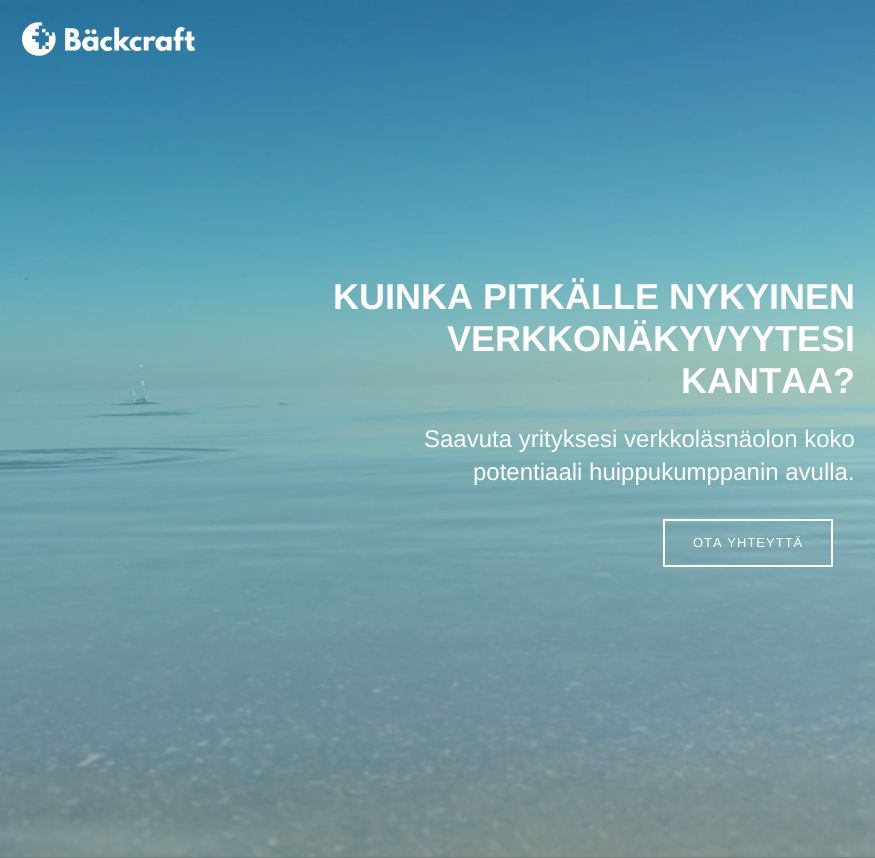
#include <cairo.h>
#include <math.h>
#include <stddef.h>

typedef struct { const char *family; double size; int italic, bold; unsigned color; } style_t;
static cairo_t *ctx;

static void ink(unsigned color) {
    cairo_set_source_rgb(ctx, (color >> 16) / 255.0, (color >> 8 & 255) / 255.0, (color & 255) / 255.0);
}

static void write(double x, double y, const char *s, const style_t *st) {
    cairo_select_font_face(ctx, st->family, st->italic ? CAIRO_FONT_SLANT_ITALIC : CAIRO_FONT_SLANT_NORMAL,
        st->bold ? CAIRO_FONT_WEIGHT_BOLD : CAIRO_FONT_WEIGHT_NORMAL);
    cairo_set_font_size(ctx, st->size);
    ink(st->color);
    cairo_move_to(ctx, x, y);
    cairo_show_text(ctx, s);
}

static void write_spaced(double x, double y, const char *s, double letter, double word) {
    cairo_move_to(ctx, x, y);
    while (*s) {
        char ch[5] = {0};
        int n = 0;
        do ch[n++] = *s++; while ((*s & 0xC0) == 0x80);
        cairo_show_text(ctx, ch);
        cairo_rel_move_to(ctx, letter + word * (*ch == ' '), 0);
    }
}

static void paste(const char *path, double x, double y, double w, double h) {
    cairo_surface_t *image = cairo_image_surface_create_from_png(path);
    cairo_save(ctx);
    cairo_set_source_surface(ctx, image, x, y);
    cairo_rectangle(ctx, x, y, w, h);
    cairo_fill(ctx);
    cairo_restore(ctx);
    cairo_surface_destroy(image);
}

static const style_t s1 = {"Liberation Sans", 36, 0, 1, 0xffffff};
static const style_t s2 = {"Liberation Sans", 24, 0, 0, 0xffffff};

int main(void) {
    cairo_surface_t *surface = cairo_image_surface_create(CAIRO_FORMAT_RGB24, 875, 858);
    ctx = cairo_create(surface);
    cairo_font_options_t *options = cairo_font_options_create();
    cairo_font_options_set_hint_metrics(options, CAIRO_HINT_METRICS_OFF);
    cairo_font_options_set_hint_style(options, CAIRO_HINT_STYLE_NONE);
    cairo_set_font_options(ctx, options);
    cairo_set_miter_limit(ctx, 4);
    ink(0xffffff);
    cairo_paint(ctx);
    paste("pic2.png", 0, 0, 875, 858);
    paste("pic1.png", 22, 22, 173, 34);
    write(333, 309, "KUINKA PITKÄLLE NYKYINEN", &s1);
    write(447, 351, "VERKKONÄKYVYYTESI", &s1);
    write(681, 393, "KANTAA?", &s1);
    write(424, 447, "Saavuta yrityksesi verkkoläsnäolon koko", &s2);
    write(473, 480, "potentiaali huippukumppanin avulla.", &s2);
    cairo_rectangle(ctx, 664, 520, 168, 46);
    cairo_stroke(ctx);
    cairo_set_font_size(ctx, 13);
    write_spaced(693, 547, "OTA YHTEYTTÄ", 1, 0);
    cairo_surface_write_to_png(surface, "screenshot.png");
    cairo_font_options_destroy(options);
    cairo_destroy(ctx);
    cairo_surface_destroy(surface);
    return 0;
}
